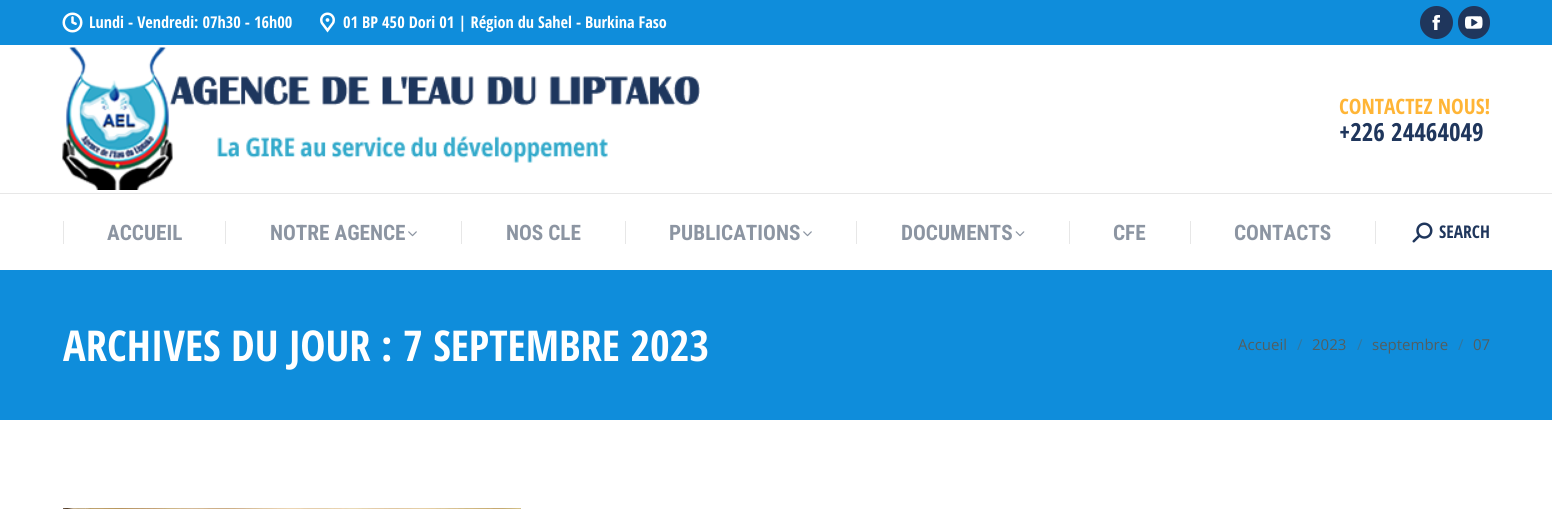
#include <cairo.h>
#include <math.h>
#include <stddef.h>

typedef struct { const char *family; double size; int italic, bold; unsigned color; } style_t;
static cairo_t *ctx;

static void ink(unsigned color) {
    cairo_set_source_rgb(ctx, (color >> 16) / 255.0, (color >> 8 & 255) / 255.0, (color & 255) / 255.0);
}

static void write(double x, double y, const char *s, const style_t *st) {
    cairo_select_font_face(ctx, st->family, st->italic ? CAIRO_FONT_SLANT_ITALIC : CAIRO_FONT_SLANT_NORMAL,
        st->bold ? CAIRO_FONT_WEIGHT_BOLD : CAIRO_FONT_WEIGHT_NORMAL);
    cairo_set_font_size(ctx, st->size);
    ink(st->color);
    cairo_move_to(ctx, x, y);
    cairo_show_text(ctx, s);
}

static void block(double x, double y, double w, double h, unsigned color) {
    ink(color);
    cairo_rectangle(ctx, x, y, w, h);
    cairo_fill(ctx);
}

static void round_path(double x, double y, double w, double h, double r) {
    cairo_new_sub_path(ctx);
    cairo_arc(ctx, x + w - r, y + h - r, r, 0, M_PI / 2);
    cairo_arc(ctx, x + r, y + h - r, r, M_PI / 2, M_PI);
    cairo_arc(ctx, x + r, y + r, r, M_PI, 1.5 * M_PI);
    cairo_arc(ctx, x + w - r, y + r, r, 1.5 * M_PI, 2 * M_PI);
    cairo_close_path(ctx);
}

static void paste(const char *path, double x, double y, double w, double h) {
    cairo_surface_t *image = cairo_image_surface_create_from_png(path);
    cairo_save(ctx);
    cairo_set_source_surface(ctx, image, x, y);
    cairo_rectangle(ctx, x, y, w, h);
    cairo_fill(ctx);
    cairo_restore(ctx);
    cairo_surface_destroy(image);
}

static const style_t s1 = {"Open Sans Condensed", 16.25, 0, 1, 0xffffff};
static const style_t s2 = {"Open Sans Condensed", 21.25, 0, 1, 0xffb536};
static const style_t s3 = {"Open Sans Condensed", 25, 0, 1, 0x1f365c};
static const style_t s4 = {"Roboto Condensed", 21.25, 0, 1, 0x8c95a2};
static const style_t s5 = {"Open Sans Condensed", 17.5, 0, 1, 0x1f365c};
static const style_t s6 = {"Open Sans Condensed", 42.5, 0, 1, 0xffffff};
static const style_t s7 = {"Open Sans", 15, 0, 0, 0x525e60};
static const style_t s8 = {"Open Sans", 15, 0, 0, 0x31769e};

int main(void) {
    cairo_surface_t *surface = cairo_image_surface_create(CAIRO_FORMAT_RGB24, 1552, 509);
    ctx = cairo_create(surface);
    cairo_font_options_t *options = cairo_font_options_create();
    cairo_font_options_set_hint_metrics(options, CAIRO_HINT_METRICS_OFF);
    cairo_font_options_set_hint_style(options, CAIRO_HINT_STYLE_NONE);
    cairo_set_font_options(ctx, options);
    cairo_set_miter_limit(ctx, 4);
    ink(0xffffff);
    cairo_paint(ctx);
    block(0, 0, 1552, 45, 0x0f8ddb);
    paste("pic1.png", 62, 12, 21, 21);
    write(89, 28, "Lundi - Vendredi: 07h30 - 16h00", &s1);
    paste("pic2.png", 320, 12, 15, 21);
    write(343, 28, "01 BP 450 Dori 01 | Région du Sahel - Burkina Faso", &s1);
    ink(0x1f365c);
    cairo_new_path(ctx);
    cairo_arc(ctx, 1436.5, 22.5, 16.5, 0, 2 * M_PI);
    cairo_fill(ctx);
    paste("pic3.png", 1432, 15, 8, 15);
    round_path(1458, 6, 32, 33, 16);
    cairo_fill(ctx);
    paste("pic4.png", 1465, 16, 18, 13);
    paste("pic5.png", 62, 47, 638, 143);
    write(1339, 114, "CONTACTEZ NOUS!", &s2);
    write(1339, 141, "+226 24464049", &s3);
    block(0, 193, 1552, 1, 0xe7e7e7);
    block(63, 221, 1, 23, 0xe7e7e7);
    write(107, 240, "ACCUEIL", &s4);
    block(225, 221, 1, 23, 0xe7e7e7);
    write(270, 240, "NOTRE AGENCE", &s4);
    paste("pic6.png", 408, 231, 9, 6);
    block(461, 221, 1, 23, 0xe7e7e7);
    write(506, 240, "NOS CLE", &s4);
    block(625, 221, 1, 23, 0xe7e7e7);
    write(669, 240, "PUBLICATIONS", &s4);
    paste("pic6.png", 803, 231, 9, 6);
    block(856, 221, 1, 23, 0xe7e7e7);
    write(901, 240, "DOCUMENTS", &s4);
    paste("pic7.png", 1015, 231, 10, 6);
    block(1069, 221, 1, 23, 0xe7e7e7);
    write(1113, 240, "CFE", &s4);
    block(1190, 221, 1, 23, 0xe7e7e7);
    write(1234, 240, "CONTACTS", &s4);
    block(1375, 221, 1, 23, 0xe7e7e7);
    paste("pic8.png", 1412, 222, 21, 21);
    write(1439, 238, "SEARCH", &s5);
    block(0, 270, 1552, 150, 0x0f8ddb);
    write(63, 361, "ARCHIVES DU JOUR : 7 SEPTEMBRE 2023", &s6);
    write(1238, 350, "Accueil", &s7);
    write(1297, 350, "/", &s8);
    write(1312, 350, "2023", &s7);
    write(1357, 350, "/", &s8);
    write(1372, 350, "septembre", &s7);
    write(1458, 350, "/", &s8);
    write(1473, 350, "07", &s7);
    paste("pic9.png", 63, 508, 458, 1);
    cairo_surface_write_to_png(surface, "screenshot.png");
    cairo_font_options_destroy(options);
    cairo_destroy(ctx);
    cairo_surface_destroy(surface);
    return 0;
}
